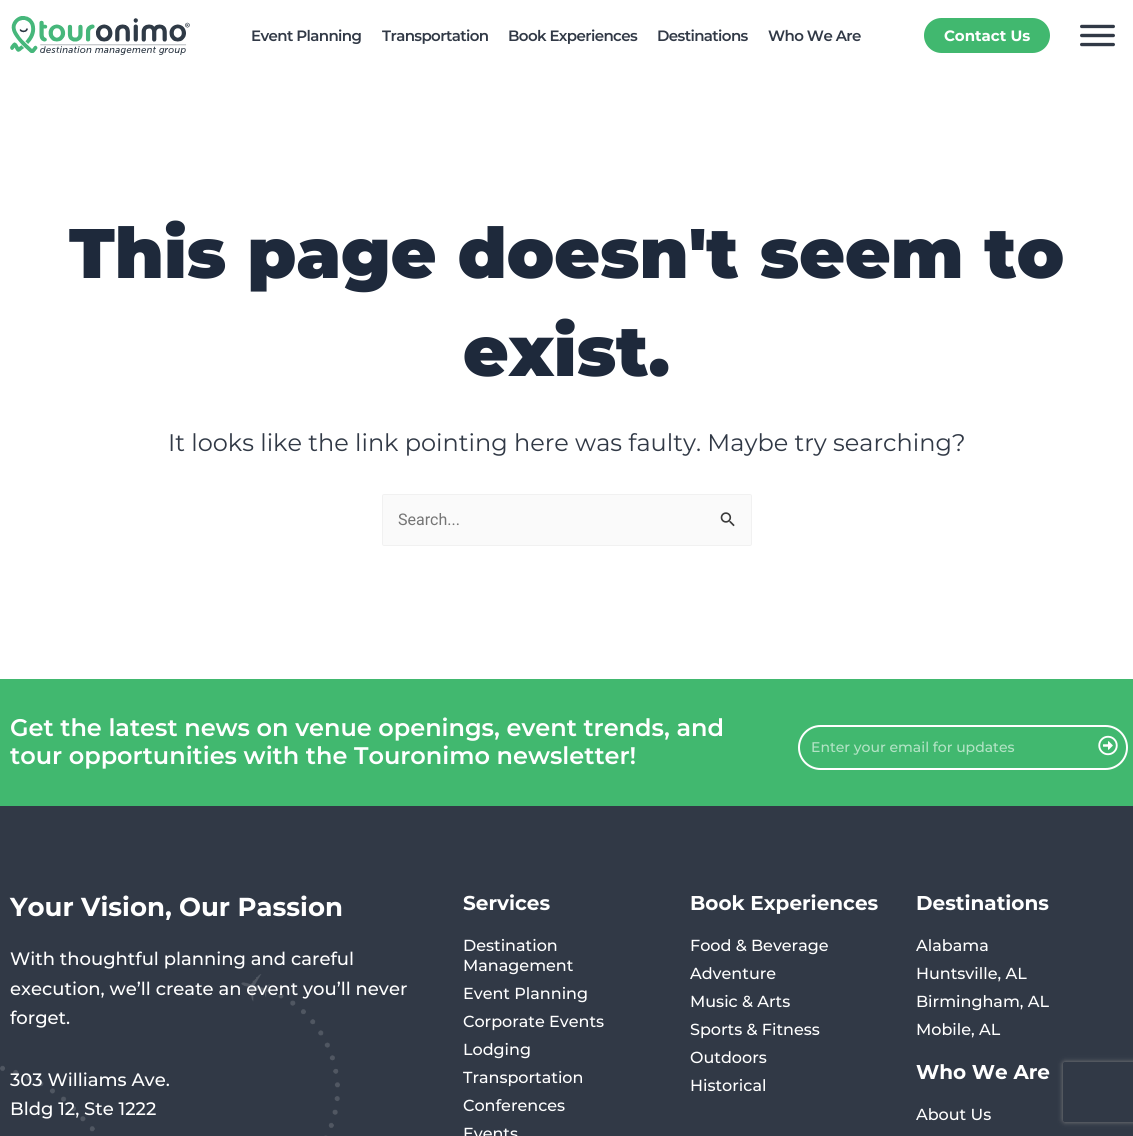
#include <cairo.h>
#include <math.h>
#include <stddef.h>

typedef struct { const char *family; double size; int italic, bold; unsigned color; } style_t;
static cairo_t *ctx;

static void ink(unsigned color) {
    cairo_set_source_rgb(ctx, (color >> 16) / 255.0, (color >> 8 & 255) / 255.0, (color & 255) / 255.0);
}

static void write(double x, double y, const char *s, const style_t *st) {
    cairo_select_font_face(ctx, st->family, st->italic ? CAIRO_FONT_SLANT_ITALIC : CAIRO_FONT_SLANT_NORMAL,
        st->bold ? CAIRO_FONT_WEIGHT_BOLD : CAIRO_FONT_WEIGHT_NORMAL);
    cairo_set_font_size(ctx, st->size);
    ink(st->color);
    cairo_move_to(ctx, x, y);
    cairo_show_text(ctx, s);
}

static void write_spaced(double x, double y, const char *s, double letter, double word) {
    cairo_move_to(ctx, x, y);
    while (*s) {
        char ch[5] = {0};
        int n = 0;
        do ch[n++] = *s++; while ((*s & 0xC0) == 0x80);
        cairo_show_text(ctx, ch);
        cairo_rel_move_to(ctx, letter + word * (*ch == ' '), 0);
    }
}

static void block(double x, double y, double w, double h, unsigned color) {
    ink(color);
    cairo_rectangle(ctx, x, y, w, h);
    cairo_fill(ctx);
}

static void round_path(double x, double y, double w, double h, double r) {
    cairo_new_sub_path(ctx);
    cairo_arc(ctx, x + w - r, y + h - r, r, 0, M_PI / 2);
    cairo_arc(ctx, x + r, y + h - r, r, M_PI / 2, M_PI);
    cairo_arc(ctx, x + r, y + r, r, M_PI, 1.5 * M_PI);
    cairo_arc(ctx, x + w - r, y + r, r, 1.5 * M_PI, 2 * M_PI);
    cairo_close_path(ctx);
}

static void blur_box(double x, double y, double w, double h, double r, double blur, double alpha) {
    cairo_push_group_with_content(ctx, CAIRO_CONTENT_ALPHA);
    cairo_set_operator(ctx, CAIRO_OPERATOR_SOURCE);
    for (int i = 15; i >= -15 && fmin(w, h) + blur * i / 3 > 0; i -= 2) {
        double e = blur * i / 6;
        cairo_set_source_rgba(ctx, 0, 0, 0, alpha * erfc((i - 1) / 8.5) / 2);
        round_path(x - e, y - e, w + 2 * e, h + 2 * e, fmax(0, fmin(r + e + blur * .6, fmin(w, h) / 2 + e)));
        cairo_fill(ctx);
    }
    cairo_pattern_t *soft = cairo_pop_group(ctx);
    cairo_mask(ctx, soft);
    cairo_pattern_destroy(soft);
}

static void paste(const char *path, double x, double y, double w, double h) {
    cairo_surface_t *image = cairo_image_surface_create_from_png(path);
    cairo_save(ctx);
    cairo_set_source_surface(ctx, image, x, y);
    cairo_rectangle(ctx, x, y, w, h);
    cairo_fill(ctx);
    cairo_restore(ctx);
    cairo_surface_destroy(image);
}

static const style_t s1 = {"Montserrat", 15, 0, 1, 0xffffff};
static const style_t s2 = {"Montserrat Black", 70, 0, 0, 0x1e293b};
static const style_t s3 = {"Montserrat", 24, 0, 0, 0x313946};
static const style_t s4 = {"Roboto", 16, 0, 0, 0x757575};
static const style_t s5 = {"Montserrat SemiBold", 24, 0, 0, 0xffffff};
static const style_t s6 = {"Montserrat Medium", 14, 0, 0, 0xb3e3c5};
static const style_t s7 = {"Montserrat", 26, 0, 1, 0xffffff};
static const style_t s8 = {"Montserrat Medium", 18, 0, 0, 0xffffff};
static const style_t s9 = {"Montserrat", 20, 0, 1, 0xffffff};
static const style_t s10 = {"Montserrat Medium", 16, 0, 0, 0xffffff};

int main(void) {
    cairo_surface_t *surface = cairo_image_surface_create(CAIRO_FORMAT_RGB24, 1133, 1136);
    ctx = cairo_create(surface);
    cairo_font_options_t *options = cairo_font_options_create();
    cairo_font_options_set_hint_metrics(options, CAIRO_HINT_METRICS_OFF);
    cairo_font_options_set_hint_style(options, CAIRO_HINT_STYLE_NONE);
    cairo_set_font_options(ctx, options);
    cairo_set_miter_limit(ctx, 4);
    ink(0xffffff);
    cairo_paint(ctx);
    paste("pic1.png", 10, 16, 180, 39);
    cairo_select_font_face(ctx, "Montserrat SemiBold", CAIRO_FONT_SLANT_NORMAL, CAIRO_FONT_WEIGHT_NORMAL);
    cairo_set_font_size(ctx, 15);
    ink(0x313946);
    write_spaced(251, 41, "Event Planning", -0.6, 0);
    write_spaced(382, 41, "Transportation", -0.6, 0);
    write_spaced(508, 41, "Book Experiences", -0.6, 0);
    write_spaced(657, 41, "Destinations", -0.6, 0);
    write_spaced(768, 41, "Who We Are", -0.6, 0);
    ink(0x41b86f);
    round_path(924, 18, 126, 35, 17.5);
    cairo_fill(ctx);
    write(944, 41, "Contact Us", &s1);
    paste("pic2.png", 1080, 24, 35, 23);
    write(69, 278, "This page doesn't seem to", &s2);
    write(463, 376, "exist.", &s2);
    write(168, 451, "It looks like the link pointing here was faulty. Maybe try searching?", &s3);
    ink(0xfafafa);
    round_path(382.5, 494.5, 369, 51, 1.5);
    cairo_fill_preserve(ctx);
    ink(0xf1f1f1);
    cairo_set_line_width(ctx, 1);
    cairo_stroke(ctx);
    write(398, 525, "Search...", &s4);
    paste("pic3.png", 720, 512, 15, 15);
    block(0, 679, 1133, 127, 0x41b86f);
    write(10, 736, "Get the latest news on venue openings, event trends, and", &s5);
    write(10, 764, "tour opportunities with the Touronimo newsletter!", &s5);
    round_path(799, 726, 328, 43, 21.5);
    cairo_set_line_width(ctx, 2);
    cairo_stroke(ctx);
    write(811, 752, "Enter your email for updates", &s6);
    paste("pic4.png", 1098, 735, 20, 21);
    block(0, 806, 1133, 330, 0x313946);
    paste("pic5.png", 0, 974, 340, 162);
    write(10, 916, "Your Vision, Our Passion", &s7);
    write(10, 965, "With thoughtful planning and careful", &s8);
    write(10, 995, "execution, we’ll create an event you’ll never", &s8);
    write(10, 1024, "forget.", &s8);
    write(10, 1086, "303 Williams Ave.", &s8);
    write(10, 1115, "Bldg 12, Ste 1222", &s8);
    write(463, 910, "Services", &s9);
    write(463, 951, "Destination", &s10);
    write(463, 971, "Management", &s10);
    write(463, 999, "Event Planning", &s10);
    write(463, 1027, "Corporate Events", &s10);
    write(463, 1055, "Lodging", &s10);
    write(463, 1083, "Transportation", &s10);
    write(463, 1111, "Conferences", &s10);
    write(463, 1139, "Events", &s10);
    write(690, 910, "Book Experiences", &s9);
    write(690, 951, "Food & Beverage", &s10);
    write(690, 979, "Adventure", &s10);
    write(690, 1007, "Music & Arts", &s10);
    write(690, 1035, "Sports & Fitness", &s10);
    write(690, 1063, "Outdoors", &s10);
    write(690, 1091, "Historical", &s10);
    write(916, 910, "Destinations", &s9);
    write(916, 951, "Alabama", &s10);
    write(916, 979, "Huntsville, AL", &s10);
    write(916, 1007, "Birmingham, AL", &s10);
    write(916, 1035, "Mobile, AL", &s10);
    write(916, 1079, "Who We Are", &s9);
    write(916, 1120, "About Us", &s10);
    cairo_save(ctx);
    cairo_set_fill_rule(ctx, CAIRO_FILL_RULE_EVEN_ODD);
    cairo_new_path(ctx);
    cairo_move_to(ctx, 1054, 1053);
    cairo_line_to(ctx, 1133, 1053);
    cairo_line_to(ctx, 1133, 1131);
    cairo_line_to(ctx, 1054, 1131);
    cairo_close_path(ctx);
    cairo_move_to(ctx, 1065, 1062);
    cairo_line_to(ctx, 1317, 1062);
    cairo_curve_to(ctx, 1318, 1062, 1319, 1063, 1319, 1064);
    cairo_line_to(ctx, 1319, 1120);
    cairo_curve_to(ctx, 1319, 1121, 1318, 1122, 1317, 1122);
    cairo_line_to(ctx, 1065, 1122);
    cairo_curve_to(ctx, 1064, 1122, 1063, 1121, 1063, 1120);
    cairo_line_to(ctx, 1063, 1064);
    cairo_curve_to(ctx, 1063, 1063, 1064, 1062, 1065, 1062);
    cairo_close_path(ctx);
    cairo_clip(ctx);
    ink(0x808080);
    blur_box(1063, 1062, 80, 60, 2, 2.5, 1);
    cairo_restore(ctx);
    cairo_surface_write_to_png(surface, "screenshot.png");
    cairo_font_options_destroy(options);
    cairo_destroy(ctx);
    cairo_surface_destroy(surface);
    return 0;
}
